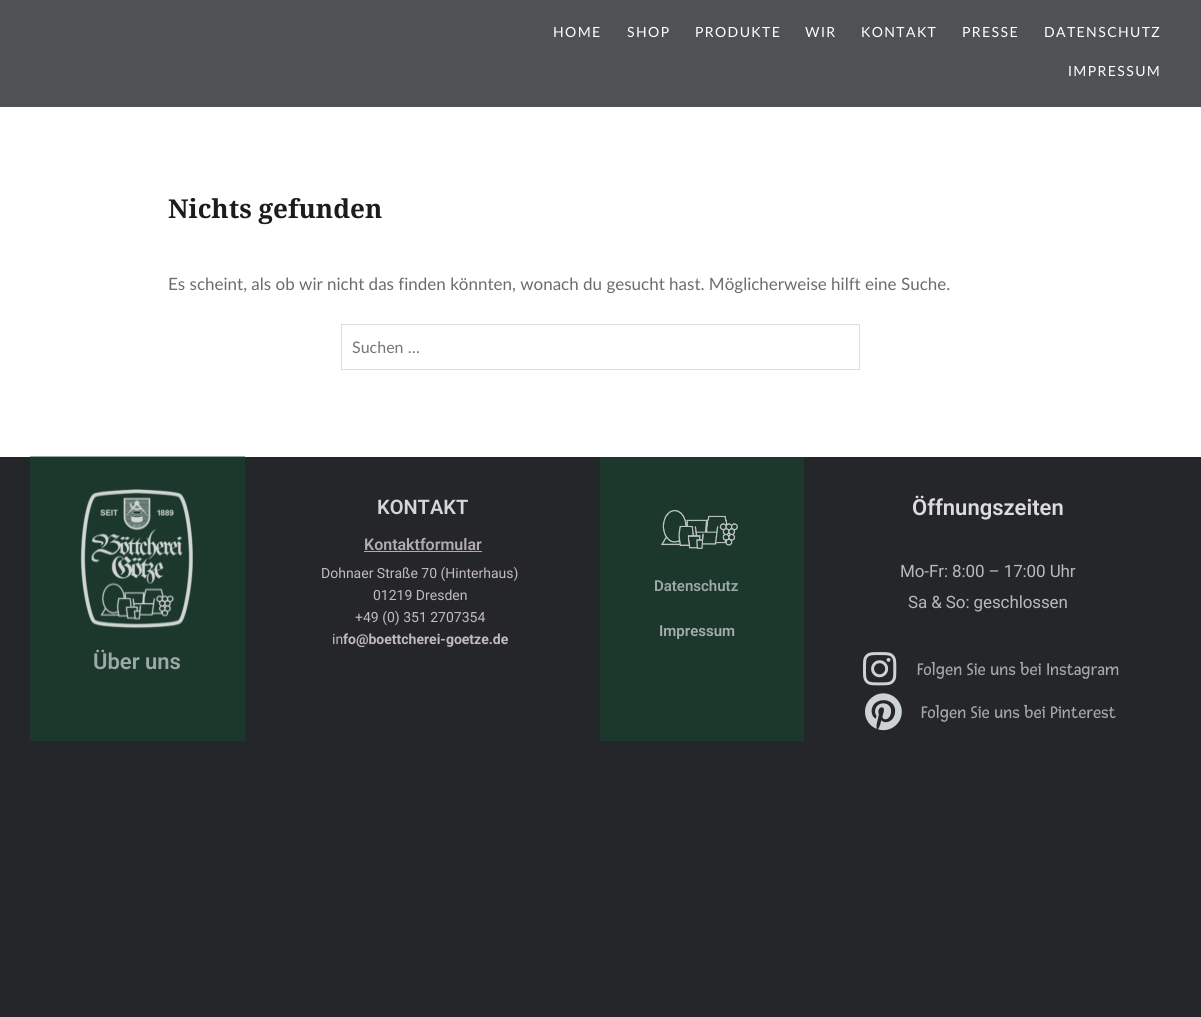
#include <cairo.h>
#include <math.h>
#include <stddef.h>

typedef struct { const char *family; double size; int italic, bold; unsigned color; } style_t;
static cairo_t *ctx;

static void ink(unsigned color) {
    cairo_set_source_rgb(ctx, (color >> 16) / 255.0, (color >> 8 & 255) / 255.0, (color & 255) / 255.0);
}

static void write(double x, double y, const char *s, const style_t *st) {
    cairo_select_font_face(ctx, st->family, st->italic ? CAIRO_FONT_SLANT_ITALIC : CAIRO_FONT_SLANT_NORMAL,
        st->bold ? CAIRO_FONT_WEIGHT_BOLD : CAIRO_FONT_WEIGHT_NORMAL);
    cairo_set_font_size(ctx, st->size);
    ink(st->color);
    cairo_move_to(ctx, x, y);
    cairo_show_text(ctx, s);
}

static void write_spaced(double x, double y, const char *s, double letter, double word) {
    cairo_move_to(ctx, x, y);
    while (*s) {
        char ch[5] = {0};
        int n = 0;
        do ch[n++] = *s++; while ((*s & 0xC0) == 0x80);
        cairo_show_text(ctx, ch);
        cairo_rel_move_to(ctx, letter + word * (*ch == ' '), 0);
    }
}

static void block(double x, double y, double w, double h, unsigned color) {
    ink(color);
    cairo_rectangle(ctx, x, y, w, h);
    cairo_fill(ctx);
}

static void paste(const char *path, double x, double y, double w, double h) {
    cairo_surface_t *image = cairo_image_surface_create_from_png(path);
    cairo_save(ctx);
    cairo_set_source_surface(ctx, image, x, y);
    cairo_rectangle(ctx, x, y, w, h);
    cairo_fill(ctx);
    cairo_restore(ctx);
    cairo_surface_destroy(image);
}

static const style_t s1 = {"Noto Serif", 26, 0, 1, 0x1a1c1e};
static const style_t s2 = {"Lato", 17, 0, 0, 0x6a6c6e};
static const style_t s3 = {"Lato", 16, 0, 0, 0x757575};
static const style_t s4 = {"Roboto SemiBold", 20, 0, 0, 0xd5d6d7};
static const style_t s5 = {"Roboto SemiBold", 16, 0, 0, 0xb2acae};
static const style_t s6 = {"Roboto", 14, 0, 0, 0xc4bbbd};
static const style_t s7 = {"Roboto", 14, 0, 1, 0xc4bbbd};
static const style_t s8 = {"Roboto SemiBold", 15, 0, 0, 0x9da9a5};
static const style_t s9 = {"Roboto SemiBold", 15, 0, 0, 0xa5aeab};
static const style_t s10 = {"Roboto SemiBold", 22, 0, 0, 0xdcdcdd};
static const style_t s11 = {"Fresca", 18, 0, 0, 0xa7a8aa};
static const style_t s12 = {"Roboto SemiBold", 22, 0, 0, 0x9da9a5};

int main(void) {
    cairo_surface_t *surface = cairo_image_surface_create(CAIRO_FORMAT_RGB24, 1201, 1017);
    ctx = cairo_create(surface);
    cairo_font_options_t *options = cairo_font_options_create();
    cairo_font_options_set_hint_metrics(options, CAIRO_HINT_METRICS_OFF);
    cairo_font_options_set_hint_style(options, CAIRO_HINT_STYLE_NONE);
    cairo_set_font_options(ctx, options);
    cairo_set_miter_limit(ctx, 4);
    ink(0x242629);
    cairo_paint(ctx);
    block(0, 107, 1201, 350, 0xffffff);
    block(0, 0, 1201, 107, 0x505154);
    cairo_select_font_face(ctx, "Lato", CAIRO_FONT_SLANT_NORMAL, CAIRO_FONT_WEIGHT_NORMAL);
    cairo_set_font_size(ctx, 14);
    ink(0xffffff);
    write_spaced(553, 37, "HOME", 1.4, 0);
    write_spaced(627, 37, "SHOP", 1.4, 0);
    write_spaced(695, 37, "PRODUKTE", 1.4, 0);
    write_spaced(805, 37, "WIR", 1.4, 0);
    write_spaced(861, 37, "KONTAKT", 1.4, 0);
    write_spaced(962, 37, "PRESSE", 1.4, 0);
    write_spaced(1044, 37, "DATENSCHUTZ", 1.4, 0);
    write_spaced(1068, 76, "IMPRESSUM", 1.4, 0);
    block(30, 456, 215, 1, 0x93ae9f);
    write(168, 218, "Nichts gefunden", &s1);
    write(168, 290, "Es scheint, als ob wir nicht das finden könnten, wonach du gesucht hast. Möglicherweise hilft eine Suche.", &s2);
    cairo_rectangle(ctx, 341.5, 324.5, 518, 45);
    ink(0xdddddd);
    cairo_set_line_width(ctx, 1);
    cairo_stroke(ctx);
    write(352, 353, "Suchen …", &s3);
    block(30, 457, 215, 284, 0x1c382d);
    write(377, 514, "KONTAKT", &s4);
    write(364, 550, "Kontaktformular", &s5);
    block(364, 551, 118, 1, 0xb2acae);
    write(321, 578, "Dohnaer Straße 70 (Hinterhaus)", &s6);
    write(373, 600, "01219 Dresden", &s6);
    write(355, 622, "+49 (0) 351 2707354", &s6);
    write(332, 644, "in", &s6);
    write(343, 644, "fo@boettcherei-goetze.de", &s7);
    block(600, 457, 204, 284, 0x1c382d);
    paste("pic1.png", 661, 510, 77, 39);
    write(654, 591, "Datenschutz", &s8);
    write(659, 636, "Impressum", &s9);
    write(912, 515, "Öffnungszeiten", &s10);
    cairo_select_font_face(ctx, "Roboto", CAIRO_FONT_SLANT_NORMAL, CAIRO_FONT_WEIGHT_NORMAL);
    cairo_set_font_size(ctx, 17);
    ink(0xb9b9bb);
    write_spaced(900, 577, "Mo-Fr: 8:00 – 17:00 Uhr", -0.1, 0);
    write_spaced(908, 608, "Sa & So: geschlossen", -0.1, 0);
    paste("pic2.png", 863, 652, 34, 34);
    write(917, 675, "Folgen Sie uns bei Instagram", &s11);
    paste("pic3.png", 865, 693, 37, 38);
    write(921, 718, "Folgen Sie uns bei Pinterest", &s11);
    paste("pic4.png", 80, 489, 113, 140);
    write(93, 669, "Über uns", &s12);
    cairo_surface_write_to_png(surface, "screenshot.png");
    cairo_font_options_destroy(options);
    cairo_destroy(ctx);
    cairo_surface_destroy(surface);
    return 0;
}
